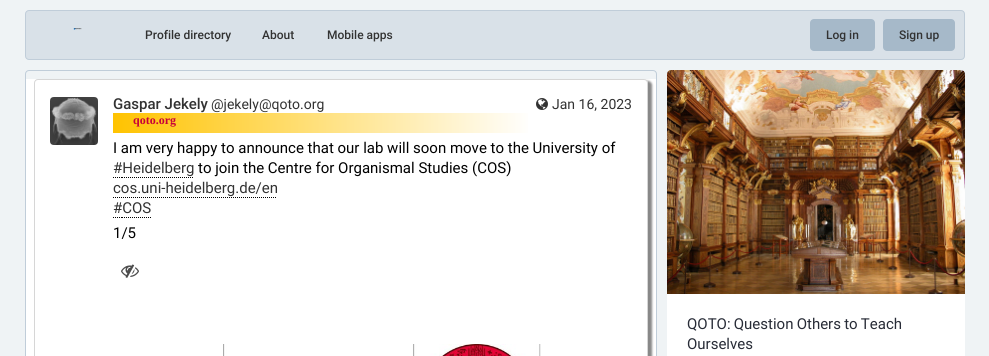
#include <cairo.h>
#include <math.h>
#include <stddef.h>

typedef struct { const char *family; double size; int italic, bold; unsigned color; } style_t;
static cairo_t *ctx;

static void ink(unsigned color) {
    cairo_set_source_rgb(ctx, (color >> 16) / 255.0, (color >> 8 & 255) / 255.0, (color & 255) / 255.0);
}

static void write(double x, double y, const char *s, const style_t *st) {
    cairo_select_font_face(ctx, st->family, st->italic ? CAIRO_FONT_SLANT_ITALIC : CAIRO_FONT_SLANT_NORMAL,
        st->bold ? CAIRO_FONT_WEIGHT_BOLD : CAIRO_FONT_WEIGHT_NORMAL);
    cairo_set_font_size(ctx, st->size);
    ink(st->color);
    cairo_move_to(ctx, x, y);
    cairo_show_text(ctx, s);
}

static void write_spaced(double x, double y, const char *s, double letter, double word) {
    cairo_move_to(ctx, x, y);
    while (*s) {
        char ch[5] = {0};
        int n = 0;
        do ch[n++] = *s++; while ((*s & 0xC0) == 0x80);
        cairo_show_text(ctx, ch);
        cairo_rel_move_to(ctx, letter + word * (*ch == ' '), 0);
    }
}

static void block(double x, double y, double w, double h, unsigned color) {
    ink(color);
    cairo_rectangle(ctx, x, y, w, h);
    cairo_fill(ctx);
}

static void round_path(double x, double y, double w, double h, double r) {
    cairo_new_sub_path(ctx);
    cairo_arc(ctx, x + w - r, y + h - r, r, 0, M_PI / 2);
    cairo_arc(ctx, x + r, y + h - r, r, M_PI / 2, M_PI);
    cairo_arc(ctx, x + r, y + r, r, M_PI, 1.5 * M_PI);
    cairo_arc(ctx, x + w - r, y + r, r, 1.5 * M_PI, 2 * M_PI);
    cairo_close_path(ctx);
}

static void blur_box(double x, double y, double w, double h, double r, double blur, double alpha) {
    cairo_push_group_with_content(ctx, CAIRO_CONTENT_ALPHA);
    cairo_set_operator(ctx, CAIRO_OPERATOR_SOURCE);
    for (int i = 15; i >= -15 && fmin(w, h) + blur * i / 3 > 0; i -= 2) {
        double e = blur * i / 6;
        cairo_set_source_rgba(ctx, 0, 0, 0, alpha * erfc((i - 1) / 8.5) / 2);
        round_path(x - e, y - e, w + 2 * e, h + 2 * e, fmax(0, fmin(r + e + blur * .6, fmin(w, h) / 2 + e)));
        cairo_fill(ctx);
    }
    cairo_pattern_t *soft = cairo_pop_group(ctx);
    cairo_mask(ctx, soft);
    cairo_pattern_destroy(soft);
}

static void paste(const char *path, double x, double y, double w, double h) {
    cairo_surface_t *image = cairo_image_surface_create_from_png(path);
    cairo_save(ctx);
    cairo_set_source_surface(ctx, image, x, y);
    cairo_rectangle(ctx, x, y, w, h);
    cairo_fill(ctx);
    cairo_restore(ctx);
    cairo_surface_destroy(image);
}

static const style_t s1 = {"Roboto Medium", 12, 0, 0, 0x323232};
static const style_t s2 = {"Roboto Medium", 15, 0, 0, 0x323232};
static const style_t s3 = {"Roboto", 14, 0, 0, 0x323232};
static const style_t s4 = {"Liberation Serif", 12, 0, 1, 0xc70039};
static const style_t s5 = {"Roboto", 15, 0, 0, 0x000000};
static const style_t s6 = {"Roboto", 15, 0, 0, 0x323232};
static const style_t s7 = {"Roboto", 15, 0, 0, 0x282c37};

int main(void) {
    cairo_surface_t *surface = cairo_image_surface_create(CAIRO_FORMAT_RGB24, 989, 356);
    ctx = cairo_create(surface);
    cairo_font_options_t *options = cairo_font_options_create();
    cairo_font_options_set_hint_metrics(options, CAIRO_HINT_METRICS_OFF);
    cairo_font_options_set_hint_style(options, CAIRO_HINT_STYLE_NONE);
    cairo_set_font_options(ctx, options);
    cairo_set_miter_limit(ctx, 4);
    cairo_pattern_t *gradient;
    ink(0xeff3f5);
    cairo_paint(ctx);
    ink(0xd9e1e8);
    round_path(25.5, 10.5, 939, 49, 3.5);
    cairo_fill_preserve(ctx);
    ink(0xc0cdd9);
    cairo_set_line_width(ctx, 1);
    cairo_stroke(ctx);
    paste("pic1.png", 73, 28, 9, 2);
    write(145, 39, "Profile directory", &s1);
    write(262, 39, "About", &s1);
    write(327, 39, "Mobile apps", &s1);
    ink(0xa6b9c9);
    round_path(810, 19, 65, 32, 4);
    cairo_fill(ctx);
    write(826, 39, "Log in", &s1);
    ink(0xa6b9c9);
    round_path(883, 19, 72, 32, 4);
    cairo_fill(ctx);
    write(899, 39, "Sign up", &s1);
    round_path(25.5, 70.5, 631, 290, 3.5);
    ink(0xc0cdd9);
    cairo_stroke(ctx);
    block(26, 79, 630, 277, 0xffffff);
    ink(0x888888);
    blur_box(38, 81, 614, 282, 4, 1, 1);
    ink(0xffffff);
    cairo_new_path(ctx);
    cairo_move_to(ctx, 38, 79);
    cairo_line_to(ctx, 644, 79);
    cairo_curve_to(ctx, 646, 79, 648, 81, 648, 83);
    cairo_line_to(ctx, 648, 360);
    cairo_line_to(ctx, 34, 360);
    cairo_line_to(ctx, 34, 83);
    cairo_curve_to(ctx, 34, 81, 36, 79, 38, 79);
    cairo_close_path(ctx);
    cairo_fill(ctx);
    cairo_new_path(ctx);
    cairo_move_to(ctx, 38, 79.5);
    cairo_line_to(ctx, 644, 79.5);
    cairo_curve_to(ctx, 646, 79.5, 647.5, 81, 647.5, 83);
    cairo_line_to(ctx, 647.5, 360.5);
    cairo_line_to(ctx, 34.5, 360.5);
    cairo_line_to(ctx, 34.5, 83);
    cairo_curve_to(ctx, 34.5, 81, 36, 79.5, 38, 79.5);
    cairo_close_path(ctx);
    cairo_set_source_rgba(ctx, 0.8, 0.8, 0.8, 0.8);
    cairo_stroke(ctx);
    paste("pic2.png", 50, 97, 48, 48);
    write(113, 109, "Gaspar Jekely", &s2);
    write(211, 109, "@jekely@qoto.org", &s3);
    gradient = cairo_pattern_create_linear(113, 123, 532, 123);
    cairo_pattern_add_color_stop_rgba(gradient, 0, 1, 0.765, 0, 1);
    cairo_pattern_add_color_stop_rgba(gradient, 1, 1, 1, 1, 1);
    cairo_set_source(ctx, gradient);
    cairo_pattern_destroy(gradient);
    cairo_rectangle(ctx, 113, 113, 415, 20);
    cairo_fill(ctx);
    write(133, 124, "qoto.org", &s4);
    paste("pic3.png", 536, 98, 12, 12);
    write(552, 109, "Jan 16, 2023", &s3);
    write(113, 153, "I am very happy to announce that our lab will soon move to the University of", &s5);
    write(113, 173, "#Heidelberg", &s6);
    cairo_new_path(ctx);
    cairo_move_to(ctx, 113, 177.5);
    cairo_line_to(ctx, 122, 177.5);
    ink(0x000000);
    cairo_set_dash(ctx, (double[]){1, 1}, 2, 0);
    cairo_stroke(ctx);
    cairo_new_path(ctx);
    cairo_move_to(ctx, 122, 177.5);
    cairo_line_to(ctx, 194, 177.5);
    cairo_stroke(ctx);
    write(198, 173, "to join the Centre for Organismal Studies (COS)", &s5);
    write(113, 193, "cos.uni-heidelberg.de/en", &s6);
    cairo_new_path(ctx);
    cairo_move_to(ctx, 113, 197.5);
    cairo_line_to(ctx, 277, 197.5);
    ink(0x000000);
    cairo_stroke(ctx);
    write(113, 213, "#COS", &s6);
    cairo_new_path(ctx);
    cairo_move_to(ctx, 113, 217.5);
    cairo_line_to(ctx, 122, 217.5);
    ink(0x000000);
    cairo_stroke(ctx);
    cairo_new_path(ctx);
    cairo_move_to(ctx, 122, 217.5);
    cairo_line_to(ctx, 151, 217.5);
    cairo_stroke(ctx);
    write(113, 238, "1/5", &s5);
    paste("pic4.png", 121, 264, 18, 14);
    paste("pic5.png", 223, 344, 318, 12);
    paste("pic6.png", 667, 70, 298, 224);
    block(667, 294, 298, 62, 0xffffff);
    ink(0x282c37);
    write_spaced(687, 329, "QOTO: Question Others to Teach", 0, -0.5);
    write(687, 349, "Ourselves", &s7);
    cairo_surface_write_to_png(surface, "screenshot.png");
    cairo_font_options_destroy(options);
    cairo_destroy(ctx);
    cairo_surface_destroy(surface);
    return 0;
}
